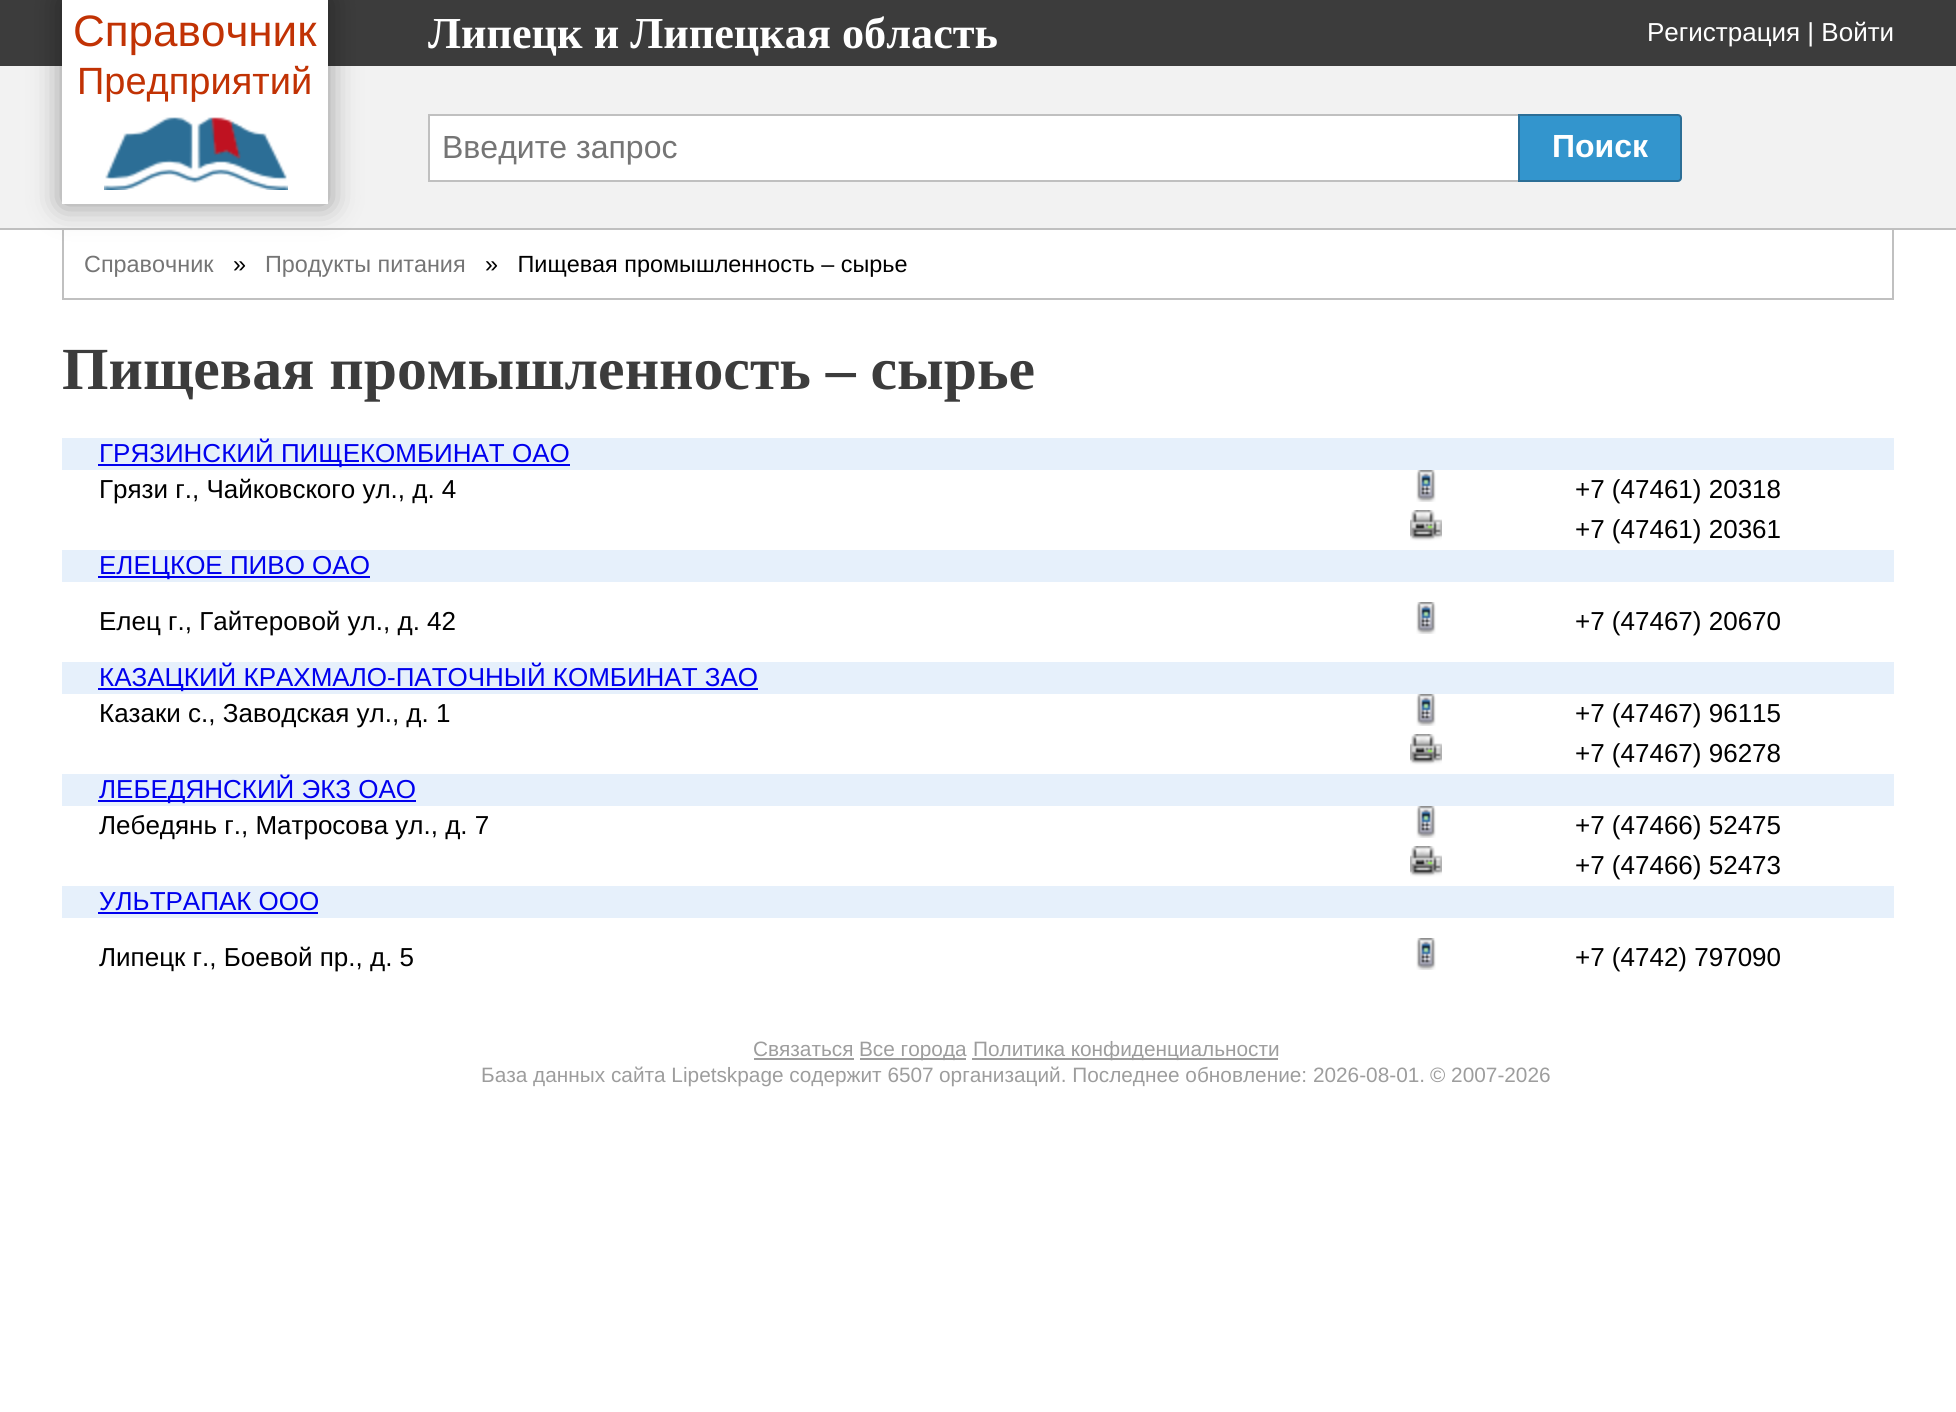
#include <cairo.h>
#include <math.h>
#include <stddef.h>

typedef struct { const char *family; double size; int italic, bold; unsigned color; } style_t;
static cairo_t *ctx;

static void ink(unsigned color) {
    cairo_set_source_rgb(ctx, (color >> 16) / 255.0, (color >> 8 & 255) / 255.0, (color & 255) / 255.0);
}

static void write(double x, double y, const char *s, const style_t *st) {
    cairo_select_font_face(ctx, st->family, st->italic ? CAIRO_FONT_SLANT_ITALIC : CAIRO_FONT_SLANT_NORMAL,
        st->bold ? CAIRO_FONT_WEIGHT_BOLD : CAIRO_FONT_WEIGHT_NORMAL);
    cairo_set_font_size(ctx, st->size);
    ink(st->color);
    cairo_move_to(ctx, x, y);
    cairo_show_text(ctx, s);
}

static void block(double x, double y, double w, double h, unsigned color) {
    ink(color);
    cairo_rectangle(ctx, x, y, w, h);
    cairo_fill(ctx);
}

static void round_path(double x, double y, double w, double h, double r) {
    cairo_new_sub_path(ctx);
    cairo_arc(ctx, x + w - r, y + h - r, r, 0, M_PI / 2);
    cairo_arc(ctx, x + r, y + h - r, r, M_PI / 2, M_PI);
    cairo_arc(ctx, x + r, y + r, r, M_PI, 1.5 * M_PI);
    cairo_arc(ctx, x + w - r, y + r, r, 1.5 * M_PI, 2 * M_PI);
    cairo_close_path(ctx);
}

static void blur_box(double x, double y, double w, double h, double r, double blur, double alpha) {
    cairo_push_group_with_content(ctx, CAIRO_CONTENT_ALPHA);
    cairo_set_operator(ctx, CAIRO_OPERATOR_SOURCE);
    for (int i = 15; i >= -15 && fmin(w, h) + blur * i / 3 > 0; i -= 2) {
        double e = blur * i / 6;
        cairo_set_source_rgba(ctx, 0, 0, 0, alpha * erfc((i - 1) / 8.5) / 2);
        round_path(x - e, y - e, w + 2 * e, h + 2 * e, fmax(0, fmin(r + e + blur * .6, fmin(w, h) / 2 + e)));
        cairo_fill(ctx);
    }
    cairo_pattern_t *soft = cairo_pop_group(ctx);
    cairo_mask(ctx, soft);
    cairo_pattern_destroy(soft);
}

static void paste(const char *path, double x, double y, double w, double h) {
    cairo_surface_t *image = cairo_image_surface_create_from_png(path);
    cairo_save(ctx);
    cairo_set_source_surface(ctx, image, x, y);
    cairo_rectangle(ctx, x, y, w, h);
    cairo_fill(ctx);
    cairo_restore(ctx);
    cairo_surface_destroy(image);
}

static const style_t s1 = {"Liberation Sans", 44, 0, 0, 0xc13204};
static const style_t s2 = {"Liberation Sans", 38, 0, 0, 0xc13204};
static const style_t s3 = {"Liberation Serif", 44.25, 0, 1, 0xffffff};
static const style_t s4 = {"Liberation Sans", 26, 0, 0, 0xffffff};
static const style_t s5 = {"Liberation Sans", 32, 0, 0, 0x757575};
static const style_t s6 = {"Liberation Sans", 32, 0, 1, 0xffffff};
static const style_t s7 = {"Liberation Sans", 23.4, 0, 0, 0x757575};
static const style_t s8 = {"Liberation Sans", 23.4, 0, 0, 0x000000};
static const style_t s9 = {"Liberation Serif", 59.75, 0, 1, 0x3c3c3c};
static const style_t s10 = {"Liberation Sans", 26, 0, 0, 0x0000ee};
static const style_t s11 = {"Liberation Sans", 26, 0, 0, 0x000000};
static const style_t s12 = {"Liberation Sans", 20.8, 0, 0, 0x9d9d9d};

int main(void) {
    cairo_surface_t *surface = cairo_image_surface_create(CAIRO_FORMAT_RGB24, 1956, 1412);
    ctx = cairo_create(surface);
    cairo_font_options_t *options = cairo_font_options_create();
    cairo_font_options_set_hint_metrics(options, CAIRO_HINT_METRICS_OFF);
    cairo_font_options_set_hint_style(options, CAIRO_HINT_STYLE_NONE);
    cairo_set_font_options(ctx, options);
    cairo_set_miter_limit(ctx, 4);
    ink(0xffffff);
    cairo_paint(ctx);
    block(0, 0, 1956, 66, 0x3c3c3c);
    block(0, 66, 1956, 162, 0xf2f2f2);
    block(0, 228, 1956, 2, 0xc0c0c0);
    block(1892, 230, 2, 70, 0xc0c0c0);
    block(62, 298, 1832, 2, 0xc0c0c0);
    block(62, 230, 2, 70, 0xc0c0c0);
    ink(0x000000);
    blur_box(62, 0, 266, 204, 0, 15, 0.4);
    block(62, 0, 266, 204, 0xffffff);
    write(73, 46, "Справочник", &s1);
    write(77, 94, "Предприятий", &s2);
    paste("pic1.png", 104, 117, 184, 73);
    write(428, 48, "Липецк и Липецкая область", &s3);
    write(1647, 41, "Регистрация | Войти", &s4);
    block(430, 116, 1088, 64, 0xffffff);
    block(428, 114, 1090, 2, 0xc0c0c0);
    block(428, 180, 1090, 2, 0xc0c0c0);
    block(428, 114, 2, 68, 0xc0c0c0);
    write(442, 158, "Введите запрос", &s5);
    ink(0x3395cd);
    cairo_new_path(ctx);
    cairo_move_to(ctx, 1519, 115);
    cairo_line_to(ctx, 1678, 115);
    cairo_curve_to(ctx, 1679.5, 115, 1681, 116.5, 1681, 118);
    cairo_line_to(ctx, 1681, 178);
    cairo_curve_to(ctx, 1681, 179.5, 1679.5, 181, 1678, 181);
    cairo_line_to(ctx, 1519, 181);
    cairo_close_path(ctx);
    cairo_fill_preserve(ctx);
    ink(0x2c6e96);
    cairo_stroke(ctx);
    write(1552, 157, "Поиск", &s6);
    write(84, 272, "Справочник", &s7);
    write(233, 272, "»", &s8);
    write(265, 272, "Продукты питания", &s7);
    write(485, 272, "»   Пищевая промышленность – сырье", &s8);
    write(62, 389, "Пищевая промышленность – сырье", &s9);
    block(62, 438, 1832, 32, 0xe6f0fb);
    block(98, 464, 472, 2, 0x0000ee);
    write(99, 462, "ГРЯЗИНСКИЙ ПИЩЕКОМБИНАТ ОАО", &s10);
    write(99, 498, "Грязи г., Чайковского ул., д. 4", &s11);
    paste("pic2.png", 1416, 470, 20, 32);
    write(1575, 498, "+7 (47461) 20318", &s11);
    paste("pic3.png", 1410, 510, 32, 31);
    write(1575, 538, "+7 (47461) 20361", &s11);
    block(62, 550, 1832, 32, 0xe6f0fb);
    block(98, 576, 272, 2, 0x0000ee);
    write(99, 574, "ЕЛЕЦКОЕ ПИВО ОАО", &s10);
    write(99, 630, "Елец г., Гайтеровой ул., д. 42", &s11);
    paste("pic2.png", 1416, 602, 20, 32);
    write(1575, 630, "+7 (47467) 20670", &s11);
    block(62, 662, 1832, 32, 0xe6f0fb);
    block(98, 688, 660, 2, 0x0000ee);
    write(99, 686, "КАЗАЦКИЙ КРАХМАЛО-ПАТОЧНЫЙ КОМБИНАТ ЗАО", &s10);
    write(99, 722, "Казаки с., Заводская ул., д. 1", &s11);
    paste("pic2.png", 1416, 694, 20, 32);
    write(1575, 722, "+7 (47467) 96115", &s11);
    paste("pic3.png", 1410, 734, 32, 31);
    write(1575, 762, "+7 (47467) 96278", &s11);
    block(62, 774, 1832, 32, 0xe6f0fb);
    block(98, 800, 318, 2, 0x0000ee);
    write(99, 798, "ЛЕБЕДЯНСКИЙ ЭКЗ ОАО", &s10);
    write(99, 834, "Лебедянь г., Матросова ул., д. 7", &s11);
    paste("pic2.png", 1416, 806, 20, 32);
    write(1575, 834, "+7 (47466) 52475", &s11);
    paste("pic3.png", 1410, 846, 32, 31);
    write(1575, 874, "+7 (47466) 52473", &s11);
    block(62, 886, 1832, 32, 0xe6f0fb);
    write(99, 910, "УЛЬТРАПАК ООО", &s10);
    block(98, 912, 220, 2, 0x0000ee);
    write(99, 966, "Липецк г., Боевой пр., д. 5", &s11);
    paste("pic2.png", 1416, 938, 20, 32);
    write(1575, 966, "+7 (4742) 797090", &s11);
    write(753, 1056, "Связаться", &s12);
    block(754, 1058, 100, 2, 0x9d9d9d);
    block(860, 1058, 106, 2, 0x9d9d9d);
    write(859, 1056, "Все города", &s12);
    block(972, 1058, 306, 2, 0x9d9d9d);
    write(973, 1056, "Политика конфиденциальности", &s12);
    write(481, 1082, "База данных сайта Lipetskpage содержит 6507", &s12);
    write(939, 1082, "организаций. Последнее обновление: 2026-08-01.", &s12);
    write(1430, 1082, "© 2007-2026", &s12);
    cairo_surface_write_to_png(surface, "screenshot.png");
    cairo_font_options_destroy(options);
    cairo_destroy(ctx);
    cairo_surface_destroy(surface);
    return 0;
}
